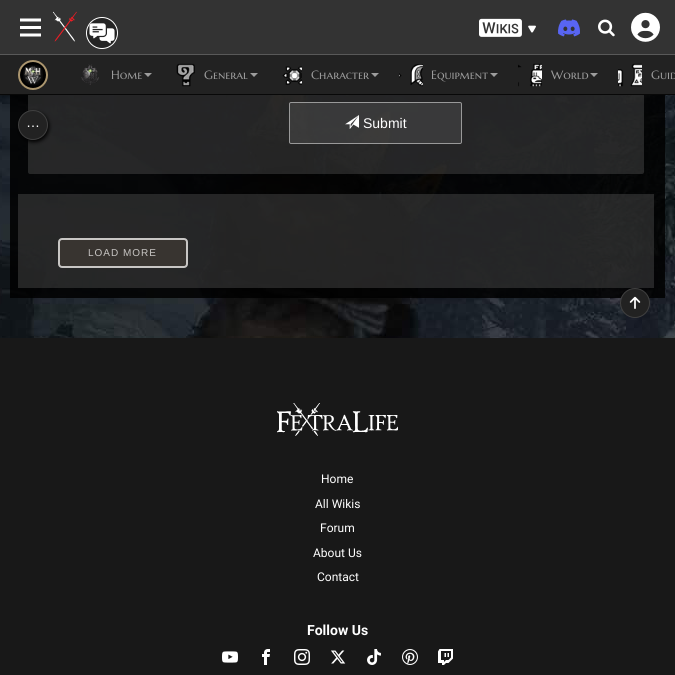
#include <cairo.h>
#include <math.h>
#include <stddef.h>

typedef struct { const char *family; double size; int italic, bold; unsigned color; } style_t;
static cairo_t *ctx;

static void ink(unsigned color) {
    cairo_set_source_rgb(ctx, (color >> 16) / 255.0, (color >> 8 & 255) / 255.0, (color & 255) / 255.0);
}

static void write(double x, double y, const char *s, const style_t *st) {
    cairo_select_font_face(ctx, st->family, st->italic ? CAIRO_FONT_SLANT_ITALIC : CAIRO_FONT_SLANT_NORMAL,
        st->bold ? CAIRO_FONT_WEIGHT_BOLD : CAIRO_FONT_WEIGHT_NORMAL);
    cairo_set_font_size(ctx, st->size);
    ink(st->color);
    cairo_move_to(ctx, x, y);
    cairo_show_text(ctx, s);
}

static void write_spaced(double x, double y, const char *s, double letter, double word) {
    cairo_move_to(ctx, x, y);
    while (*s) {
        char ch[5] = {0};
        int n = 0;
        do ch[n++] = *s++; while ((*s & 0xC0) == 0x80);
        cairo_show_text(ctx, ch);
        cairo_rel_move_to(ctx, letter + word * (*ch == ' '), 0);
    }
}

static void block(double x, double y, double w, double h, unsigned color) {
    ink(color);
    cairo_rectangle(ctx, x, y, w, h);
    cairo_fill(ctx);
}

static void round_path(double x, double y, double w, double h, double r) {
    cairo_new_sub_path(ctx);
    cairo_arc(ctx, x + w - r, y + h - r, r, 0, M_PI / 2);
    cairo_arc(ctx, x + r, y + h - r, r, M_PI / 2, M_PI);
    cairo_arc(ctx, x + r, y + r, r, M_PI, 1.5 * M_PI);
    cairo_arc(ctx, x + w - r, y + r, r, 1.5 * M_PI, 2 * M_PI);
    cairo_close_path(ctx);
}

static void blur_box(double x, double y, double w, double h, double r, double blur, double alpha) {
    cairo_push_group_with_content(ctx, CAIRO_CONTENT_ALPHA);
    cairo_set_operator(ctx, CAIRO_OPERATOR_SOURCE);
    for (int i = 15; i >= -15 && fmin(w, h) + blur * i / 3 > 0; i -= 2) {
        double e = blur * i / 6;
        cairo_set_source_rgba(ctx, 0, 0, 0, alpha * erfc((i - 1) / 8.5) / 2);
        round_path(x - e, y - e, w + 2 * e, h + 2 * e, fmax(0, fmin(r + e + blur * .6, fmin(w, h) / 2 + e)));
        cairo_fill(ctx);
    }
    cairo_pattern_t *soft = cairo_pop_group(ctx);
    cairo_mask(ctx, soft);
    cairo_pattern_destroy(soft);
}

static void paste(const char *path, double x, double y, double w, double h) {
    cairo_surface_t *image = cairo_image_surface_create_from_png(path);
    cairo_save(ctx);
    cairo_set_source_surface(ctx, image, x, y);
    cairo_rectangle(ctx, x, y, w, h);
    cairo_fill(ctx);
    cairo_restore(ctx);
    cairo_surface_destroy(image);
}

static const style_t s1 = {"Marcellus SC", 12, 0, 0, 0x9d9d9d};
static const style_t s2 = {"Liberation Sans", 14, 0, 0, 0xffffff};
static const style_t s3 = {"Roboto", 12, 0, 0, 0xffffff};
static const style_t s4 = {"Roboto", 14, 0, 1, 0xffffff};

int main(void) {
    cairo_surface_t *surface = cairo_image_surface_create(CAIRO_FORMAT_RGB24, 675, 675);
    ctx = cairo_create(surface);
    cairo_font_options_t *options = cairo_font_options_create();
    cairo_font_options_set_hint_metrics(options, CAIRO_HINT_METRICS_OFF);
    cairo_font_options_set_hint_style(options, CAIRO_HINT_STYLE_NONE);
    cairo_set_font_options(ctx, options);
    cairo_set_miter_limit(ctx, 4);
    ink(0xffffff);
    cairo_paint(ctx);
    paste("pic15.png", 0, 95, 675, 243);
    cairo_set_source_rgba(ctx, 0, 0, 0, 0.85);
    cairo_rectangle(ctx, 10, 95, 655, 203);
    cairo_fill(ctx);
    cairo_set_source_rgba(ctx, 0.349, 0.349, 0.349, 0.4);
    round_path(28, -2, 616, 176, 2);
    cairo_fill(ctx);
    block(0, 0, 675, 54, 0x333333);
    block(0, 54, 675, 1, 0x595959);
    paste("pic1.png", 20, 18, 21, 19);
    paste("pic2.png", 53, 11, 24, 31);
    ink(0x242424);
    cairo_arc(ctx, 102, 33, 15.5, 0, 2 * M_PI);
    cairo_fill_preserve(ctx);
    ink(0xffffff);
    cairo_set_line_width(ctx, 1);
    cairo_stroke(ctx);
    paste("pic3.png", 89, 23, 26, 21);
    paste("pic4.png", 479, 18, 57, 19);
    paste("pic5.png", 558, 19, 22, 18);
    paste("pic6.png", 598, 19, 17, 18);
    paste("pic7.png", 631, 12, 29, 30);
    block(0, 55, 675, 39, 0x222222);
    block(0, 94, 675, 1, 0x080808);
    paste("pic8.png", 20, 62, 26, 26);
    cairo_arc(ctx, 33, 75, 14, 0, 2 * M_PI);
    ink(0xab966f);
    cairo_set_line_width(ctx, 2);
    cairo_stroke(ctx);
    paste("pic9.png", 81, 64, 18, 21);
    write(111, 79, "Home", &s1);
    cairo_new_path(ctx);
    cairo_move_to(ctx, 144, 73);
    cairo_line_to(ctx, 152, 73);
    cairo_line_to(ctx, 148, 77);
    cairo_close_path(ctx);
    cairo_fill(ctx);
    paste("pic10.png", 176, 63, 19, 24);
    write(204, 79, "General", &s1);
    cairo_new_path(ctx);
    cairo_move_to(ctx, 250, 73);
    cairo_line_to(ctx, 258, 73);
    cairo_line_to(ctx, 254, 77);
    cairo_close_path(ctx);
    cairo_fill(ctx);
    paste("pic11.png", 282, 66, 20, 19);
    write(311, 79, "Character", &s1);
    cairo_new_path(ctx);
    cairo_move_to(ctx, 371, 73);
    cairo_line_to(ctx, 379, 73);
    cairo_line_to(ctx, 375, 77);
    cairo_close_path(ctx);
    cairo_fill(ctx);
    paste("pic12.png", 399, 64, 24, 23);
    write(431, 79, "Equipment", &s1);
    cairo_new_path(ctx);
    cairo_move_to(ctx, 490, 73);
    cairo_line_to(ctx, 498, 73);
    cairo_line_to(ctx, 494, 77);
    cairo_close_path(ctx);
    cairo_fill(ctx);
    paste("pic13.png", 518, 63, 24, 24);
    write(551, 79, "World", &s1);
    cairo_new_path(ctx);
    cairo_move_to(ctx, 590, 73);
    cairo_line_to(ctx, 598, 73);
    cairo_line_to(ctx, 594, 77);
    cairo_close_path(ctx);
    cairo_fill(ctx);
    paste("pic14.png", 618, 63, 24, 24);
    write(651, 79, "Guid", &s1);
    ink(0x000000);
    blur_box(19, 112, 30, 30, 15, 2, 1);
    ink(0x222222);
    cairo_arc(ctx, 33, 125, 14.5, 0, 2 * M_PI);
    cairo_fill_preserve(ctx);
    ink(0x404040);
    cairo_set_line_width(ctx, 1);
    cairo_stroke(ctx);
    write(26, 127, "…", &s2);
    cairo_set_source_rgba(ctx, 0.349, 0.349, 0.349, 0.4);
    round_path(289.5, 102.5, 172, 41, 1.5);
    cairo_fill_preserve(ctx);
    ink(0x999999);
    cairo_stroke(ctx);
    paste("pic16.png", 345, 115, 14, 14);
    write(363, 128, "Submit", &s2);
    cairo_set_source_rgba(ctx, 0.349, 0.349, 0.349, 0.4);
    cairo_rectangle(ctx, 18, 194, 636, 94);
    cairo_fill(ctx);
    ink(0x383430);
    round_path(59, 239, 128, 28, 3);
    cairo_fill_preserve(ctx);
    ink(0xc8c6c4);
    cairo_set_line_width(ctx, 2);
    cairo_stroke(ctx);
    cairo_set_font_size(ctx, 10);
    write_spaced(88, 256, "LOAD MORE", 1, 0);
    ink(0x222222);
    cairo_new_path(ctx);
    cairo_arc(ctx, 635, 303, 14.5, 0, 2 * M_PI);
    cairo_fill_preserve(ctx);
    ink(0x404040);
    cairo_set_line_width(ctx, 1);
    cairo_stroke(ctx);
    paste("pic17.png", 629, 296, 12, 13);
    block(0, 338, 675, 337, 0x181818);
    paste("pic18.png", 277, 403, 121, 33);
    write(321, 483, "Home", &s3);
    write(315, 508, "All Wikis", &s3);
    write(320, 532, "Forum", &s3);
    write(313, 557, "About Us", &s3);
    write(317, 581, "Contact", &s3);
    write(307, 635, "Follow Us", &s4);
    paste("pic19.png", 222, 651, 16, 12);
    paste("pic20.png", 262, 649, 8, 16);
    paste("pic21.png", 294, 649, 16, 16);
    paste("pic22.png", 331, 650, 15, 14);
    paste("pic23.png", 367, 649, 14, 16);
    paste("pic24.png", 402, 649, 16, 16);
    paste("pic25.png", 438, 649, 15, 16);
    cairo_surface_write_to_png(surface, "screenshot.png");
    cairo_font_options_destroy(options);
    cairo_destroy(ctx);
    cairo_surface_destroy(surface);
    return 0;
}
